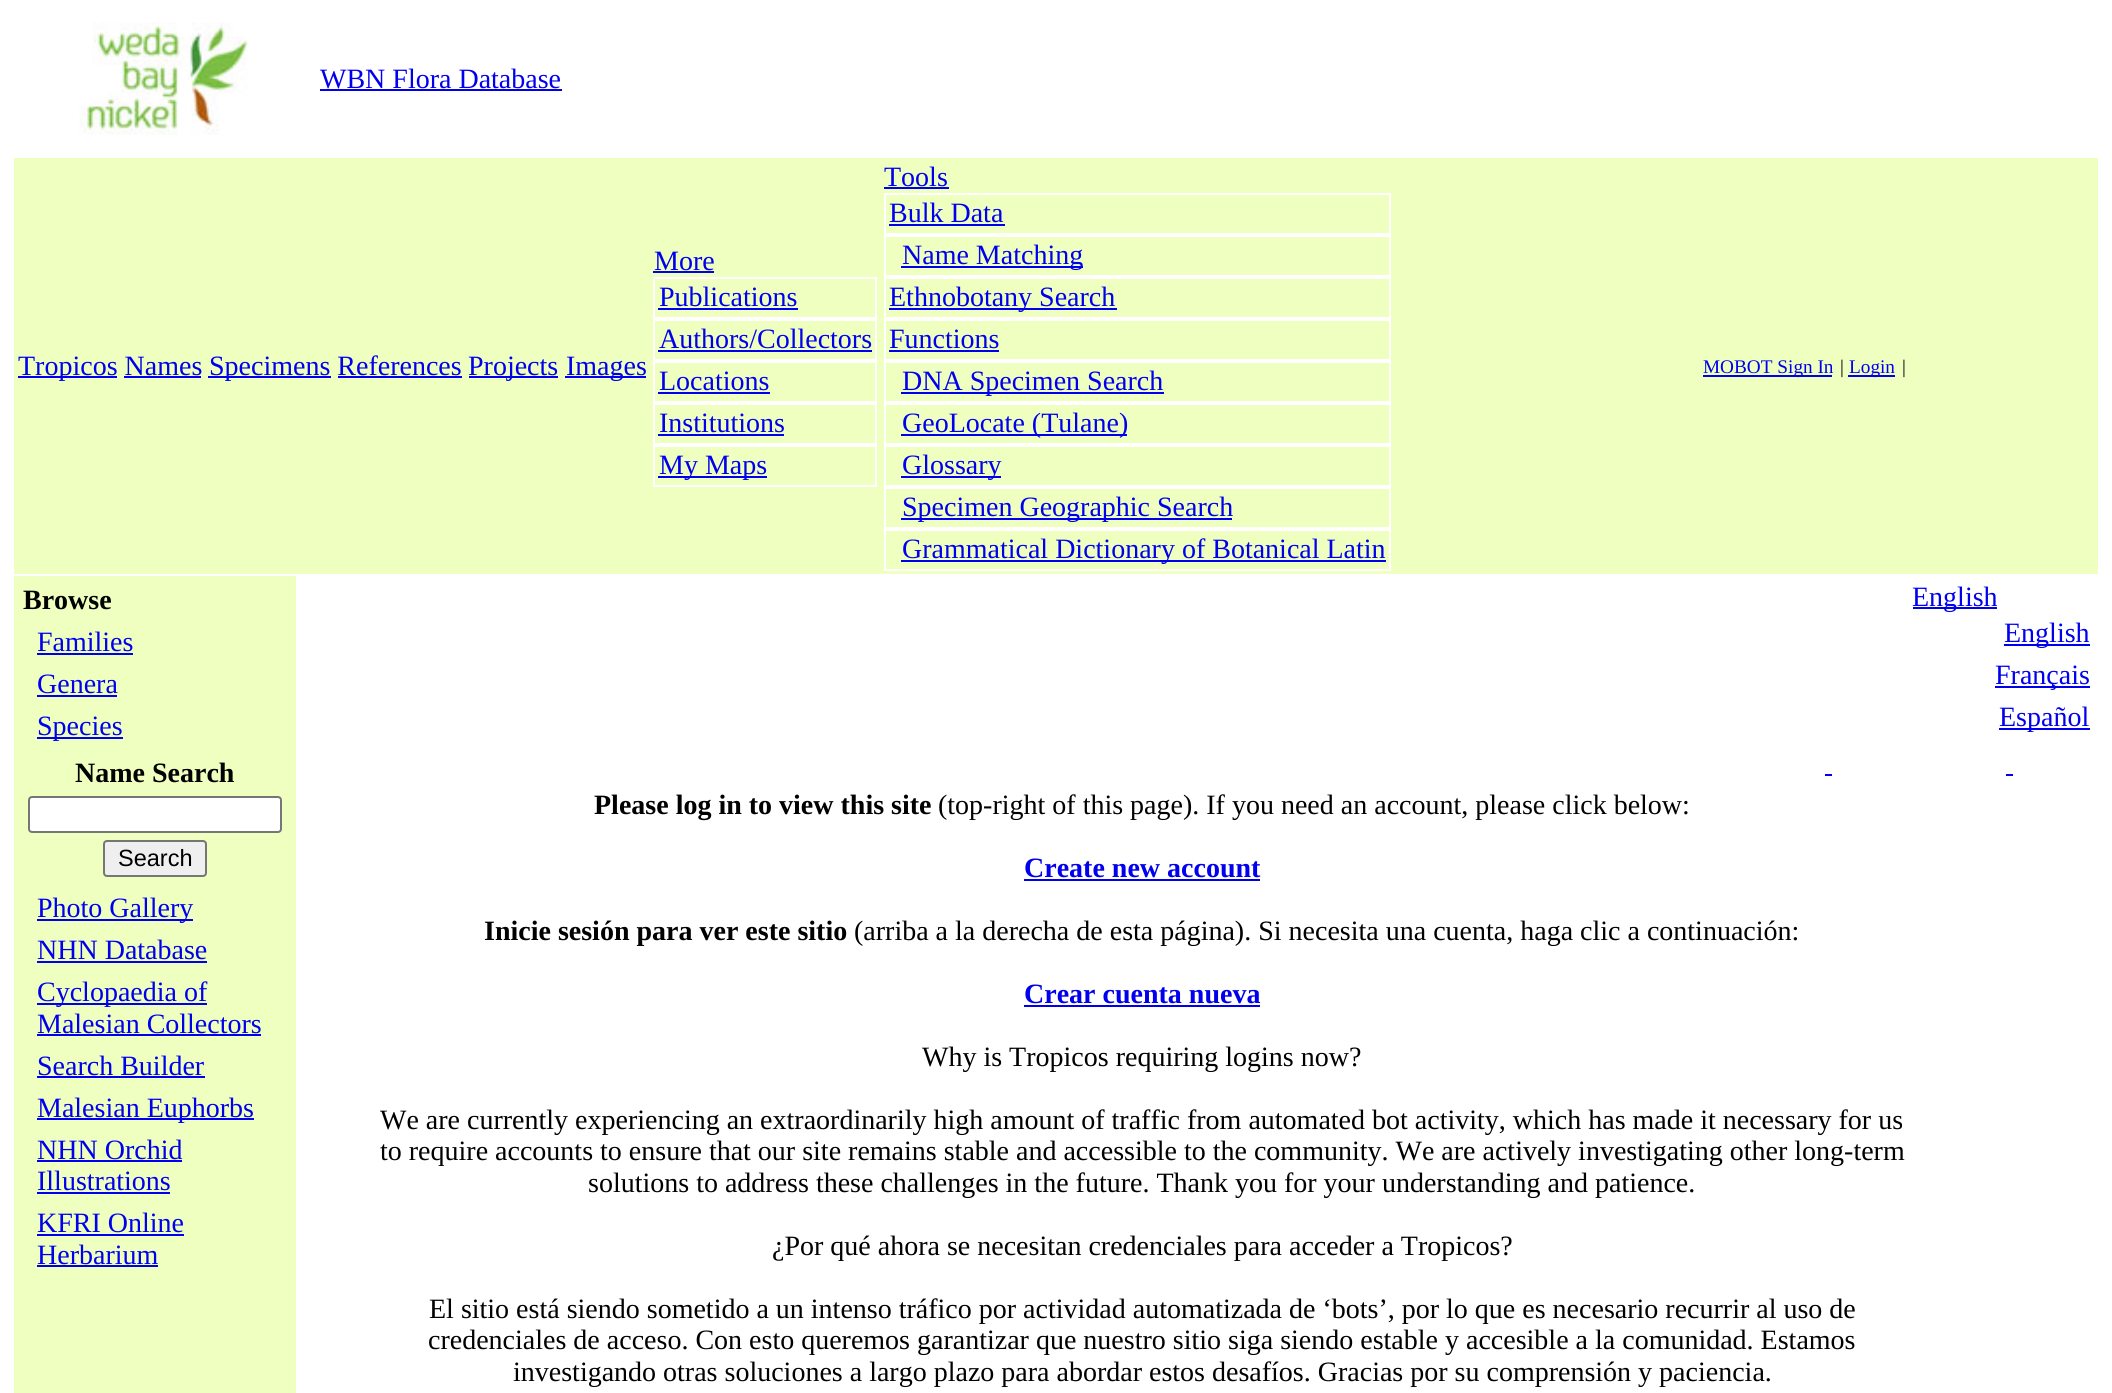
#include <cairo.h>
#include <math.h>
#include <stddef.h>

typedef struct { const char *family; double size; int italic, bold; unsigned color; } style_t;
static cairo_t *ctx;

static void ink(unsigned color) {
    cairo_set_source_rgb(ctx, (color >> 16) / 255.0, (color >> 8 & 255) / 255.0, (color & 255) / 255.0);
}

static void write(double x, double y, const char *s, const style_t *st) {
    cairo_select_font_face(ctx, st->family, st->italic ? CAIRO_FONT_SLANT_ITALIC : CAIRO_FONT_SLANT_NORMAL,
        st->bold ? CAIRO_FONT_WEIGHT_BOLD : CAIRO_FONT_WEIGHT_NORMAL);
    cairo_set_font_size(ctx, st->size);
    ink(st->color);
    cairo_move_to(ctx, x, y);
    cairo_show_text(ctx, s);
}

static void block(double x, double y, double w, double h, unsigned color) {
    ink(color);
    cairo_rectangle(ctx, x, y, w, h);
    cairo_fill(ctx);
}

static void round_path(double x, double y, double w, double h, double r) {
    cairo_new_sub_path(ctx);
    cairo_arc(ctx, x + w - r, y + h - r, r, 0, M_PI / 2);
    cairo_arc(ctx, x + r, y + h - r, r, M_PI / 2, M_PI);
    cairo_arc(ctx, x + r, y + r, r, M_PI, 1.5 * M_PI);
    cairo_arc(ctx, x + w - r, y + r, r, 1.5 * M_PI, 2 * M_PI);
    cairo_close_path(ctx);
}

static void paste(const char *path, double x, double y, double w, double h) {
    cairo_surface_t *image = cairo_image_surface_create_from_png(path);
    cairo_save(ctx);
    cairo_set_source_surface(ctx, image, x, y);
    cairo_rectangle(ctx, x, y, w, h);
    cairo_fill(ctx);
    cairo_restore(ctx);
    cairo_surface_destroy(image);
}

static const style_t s1 = {"Liberation Serif", 28, 0, 0, 0x0000ee};
static const style_t s2 = {"Liberation Serif", 19.25, 0, 0, 0x0000ee};
static const style_t s3 = {"Liberation Serif", 19.25, 0, 0, 0x000000};
static const style_t s4 = {"Liberation Serif", 28, 0, 1, 0x000000};
static const style_t s5 = {"Liberation Sans", 23.5, 0, 0, 0x000000};
static const style_t s6 = {"Liberation Serif", 28, 0, 0, 0x000000};
static const style_t s7 = {"Liberation Serif", 28, 0, 1, 0x0000ee};

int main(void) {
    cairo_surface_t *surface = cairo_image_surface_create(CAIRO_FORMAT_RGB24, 2112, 1393);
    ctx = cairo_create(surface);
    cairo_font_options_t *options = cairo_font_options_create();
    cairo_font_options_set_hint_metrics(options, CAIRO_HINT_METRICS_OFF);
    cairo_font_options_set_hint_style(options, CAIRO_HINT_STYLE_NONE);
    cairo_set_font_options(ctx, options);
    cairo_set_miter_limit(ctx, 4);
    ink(0xffffff);
    cairo_paint(ctx);
    paste("pic1.png", 79, 22, 169, 113);
    write(320, 88, "WBN Flora Database", &s1);
    block(320, 89, 242, 2, 0x0000ee);
    block(14, 158, 2084, 416, 0xefffc0);
    block(18, 376, 99, 2, 0x0000ee);
    write(18, 375, "Tropicos Names", &s1);
    block(208, 376, 123, 2, 0x0000ee);
    write(209, 375, "Specimens References", &s1);
    block(469, 376, 89, 2, 0x0000ee);
    write(468, 375, "Projects", &s1);
    block(565, 376, 81, 2, 0x0000ee);
    write(566, 375, "Images", &s1);
    write(654, 270, "More", &s1);
    block(653, 271, 61, 2, 0x0000ee);
    cairo_rectangle(ctx, 654, 278, 222, 40);
    ink(0xffffff);
    cairo_stroke(ctx);
    write(659, 306, "Publications", &s1);
    block(658, 308, 140, 2, 0x0000ee);
    cairo_rectangle(ctx, 654, 320, 222, 40);
    ink(0xffffff);
    cairo_stroke(ctx);
    write(659, 348, "Authors/Collectors", &s1);
    block(658, 350, 214, 2, 0x0000ee);
    cairo_rectangle(ctx, 654, 362, 222, 40);
    ink(0xffffff);
    cairo_stroke(ctx);
    write(659, 390, "Locations", &s1);
    block(658, 392, 112, 2, 0x0000ee);
    cairo_rectangle(ctx, 654, 404, 222, 40);
    ink(0xffffff);
    cairo_stroke(ctx);
    write(659, 432, "Institutions", &s1);
    block(658, 434, 126, 2, 0x0000ee);
    cairo_rectangle(ctx, 654, 446, 222, 40);
    ink(0xffffff);
    cairo_stroke(ctx);
    block(658, 476, 109, 2, 0x0000ee);
    write(659, 474, "My Maps", &s1);
    write(884, 186, "Tools", &s1);
    block(884, 187, 65, 2, 0x0000ee);
    cairo_rectangle(ctx, 885, 194, 505, 40);
    ink(0xffffff);
    cairo_stroke(ctx);
    write(889, 222, "Bulk Data", &s1);
    block(889, 224, 116, 2, 0x0000ee);
    cairo_rectangle(ctx, 885, 236, 505, 40);
    ink(0xffffff);
    cairo_stroke(ctx);
    block(901, 266, 182, 2, 0x0000ee);
    write(902, 264, "Name Matching", &s1);
    cairo_rectangle(ctx, 885, 278, 505, 40);
    ink(0xffffff);
    cairo_stroke(ctx);
    block(889, 308, 228, 2, 0x0000ee);
    write(889, 306, "Ethnobotany Search", &s1);
    cairo_rectangle(ctx, 885, 320, 505, 40);
    ink(0xffffff);
    cairo_stroke(ctx);
    write(889, 348, "Functions", &s1);
    block(889, 350, 110, 2, 0x0000ee);
    cairo_rectangle(ctx, 885, 362, 505, 40);
    ink(0xffffff);
    cairo_stroke(ctx);
    block(901, 392, 263, 2, 0x0000ee);
    write(902, 390, "DNA Specimen Search", &s1);
    cairo_rectangle(ctx, 885, 404, 505, 40);
    ink(0xffffff);
    cairo_stroke(ctx);
    block(901, 434, 226, 2, 0x0000ee);
    write(902, 432, "GeoLocate (Tulane)", &s1);
    cairo_rectangle(ctx, 885, 446, 505, 40);
    ink(0xffffff);
    cairo_stroke(ctx);
    block(901, 476, 100, 2, 0x0000ee);
    write(902, 474, "Glossary", &s1);
    cairo_rectangle(ctx, 885, 488, 505, 40);
    ink(0xffffff);
    cairo_stroke(ctx);
    block(901, 518, 331, 2, 0x0000ee);
    write(902, 516, "Specimen Geographic Search", &s1);
    cairo_rectangle(ctx, 885, 530, 505, 40);
    ink(0xffffff);
    cairo_stroke(ctx);
    block(901, 560, 485, 2, 0x0000ee);
    write(902, 558, "Grammatical Dictionary of Botanical Latin", &s1);
    block(1703, 375, 129, 2, 0x0000ee);
    write(1703, 373, "MOBOT Sign In", &s2);
    write(1840, 373, "|", &s3);
    block(1848, 375, 47, 2, 0x0000ee);
    write(1849, 373, "Login", &s2);
    write(1902, 373, "|", &s3);
    block(124, 376, 77, 2, 0x0000ee);
    block(338, 376, 124, 2, 0x0000ee);
    block(14, 576, 282, 817, 0xefffc0);
    write(23, 609, "Browse", &s4);
    write(37, 651, "Families", &s1);
    block(37, 653, 96, 2, 0x0000ee);
    write(37, 693, "Genera", &s1);
    block(37, 695, 80, 2, 0x0000ee);
    block(37, 737, 86, 2, 0x0000ee);
    write(37, 735, "Species", &s1);
    write(75, 782, "Name Search", &s4);
    ink(0xffffff);
    round_path(29, 797, 252, 35, 3);
    cairo_fill_preserve(ctx);
    ink(0x767676);
    cairo_stroke(ctx);
    ink(0xefefef);
    round_path(104, 841, 102, 35, 3);
    cairo_fill_preserve(ctx);
    ink(0x767676);
    cairo_stroke(ctx);
    write(118, 866, "Search", &s5);
    block(37, 919, 156, 2, 0x0000ee);
    write(37, 917, "Photo Gallery", &s1);
    write(37, 959, "NHN Database", &s1);
    block(37, 961, 170, 2, 0x0000ee);
    block(37, 1003, 170, 2, 0x0000ee);
    write(37, 1001, "Cyclopaedia of", &s1);
    write(37, 1033, "Malesian Collectors", &s1);
    block(37, 1034, 224, 2, 0x0000ee);
    write(37, 1075, "Search Builder", &s1);
    block(37, 1076, 168, 2, 0x0000ee);
    block(37, 1118, 217, 2, 0x0000ee);
    write(37, 1117, "Malesian Euphorbs", &s1);
    write(37, 1159, "NHN Orchid", &s1);
    block(37, 1160, 145, 2, 0x0000ee);
    write(37, 1190, "Illustrations", &s1);
    block(37, 1192, 133, 2, 0x0000ee);
    write(37, 1232, "KFRI Online", &s1);
    block(37, 1234, 147, 2, 0x0000ee);
    write(37, 1264, "Herbarium", &s1);
    block(37, 1265, 121, 2, 0x0000ee);
    block(1913, 607, 84, 2, 0x0000ee);
    write(1912, 606, "English", &s1);
    block(2004, 644, 86, 2, 0x0000ee);
    write(2004, 642, "English", &s1);
    block(1995, 686, 95, 2, 0x0000ee);
    write(1995, 684, "Français", &s1);
    block(1999, 728, 91, 2, 0x0000ee);
    write(1999, 726, "Español", &s1);
    block(1825, 774, 7, 2, 0x0000ee);
    block(2006, 774, 7, 2, 0x0000ee);
    write(594, 814, "Please log in to view this site", &s4);
    write(938, 814, "(top-right of this page). If you need an account, please click below:", &s6);
    write(1024, 877, "Create new account", &s7);
    block(1024, 879, 236, 2, 0x0000ee);
    write(484, 940, "Inicie sesión para ver este sitio", &s4);
    write(854, 940, "(arriba a la derecha de esta página). Si necesita una cuenta, haga clic a continuación:", &s6);
    write(1024, 1003, "Crear cuenta nueva", &s7);
    block(1024, 1005, 236, 2, 0x0000ee);
    write(922, 1066, "Why is Tropicos requiring logins now?", &s6);
    write(380, 1129, "We are currently experiencing an extraordinarily high amount of traffic from automated bot activity, which has made it necessary for us", &s6);
    write(380, 1160, "to require accounts to ensure that our site remains stable and accessible to the community. We are actively investigating other long-term", &s6);
    write(588, 1192, "solutions to address these challenges in the future. Thank you for your understanding and patience.", &s6);
    write(772, 1255, "¿Por qué ahora se necesitan credenciales para acceder a Tropicos?", &s6);
    write(429, 1318, "El sitio está siendo sometido a un intenso tráfico por actividad automatizada de ‘bots’, por lo que es necesario recurrir al uso de", &s6);
    write(428, 1349, "credenciales de acceso. Con esto queremos garantizar que nuestro sitio siga siendo estable y accesible a la comunidad. Estamos", &s6);
    write(513, 1381, "investigando otras soluciones a largo plazo para abordar estos desafíos. Gracias por su comprensión y paciencia.", &s6);
    cairo_surface_write_to_png(surface, "screenshot.png");
    cairo_font_options_destroy(options);
    cairo_destroy(ctx);
    cairo_surface_destroy(surface);
    return 0;
}
